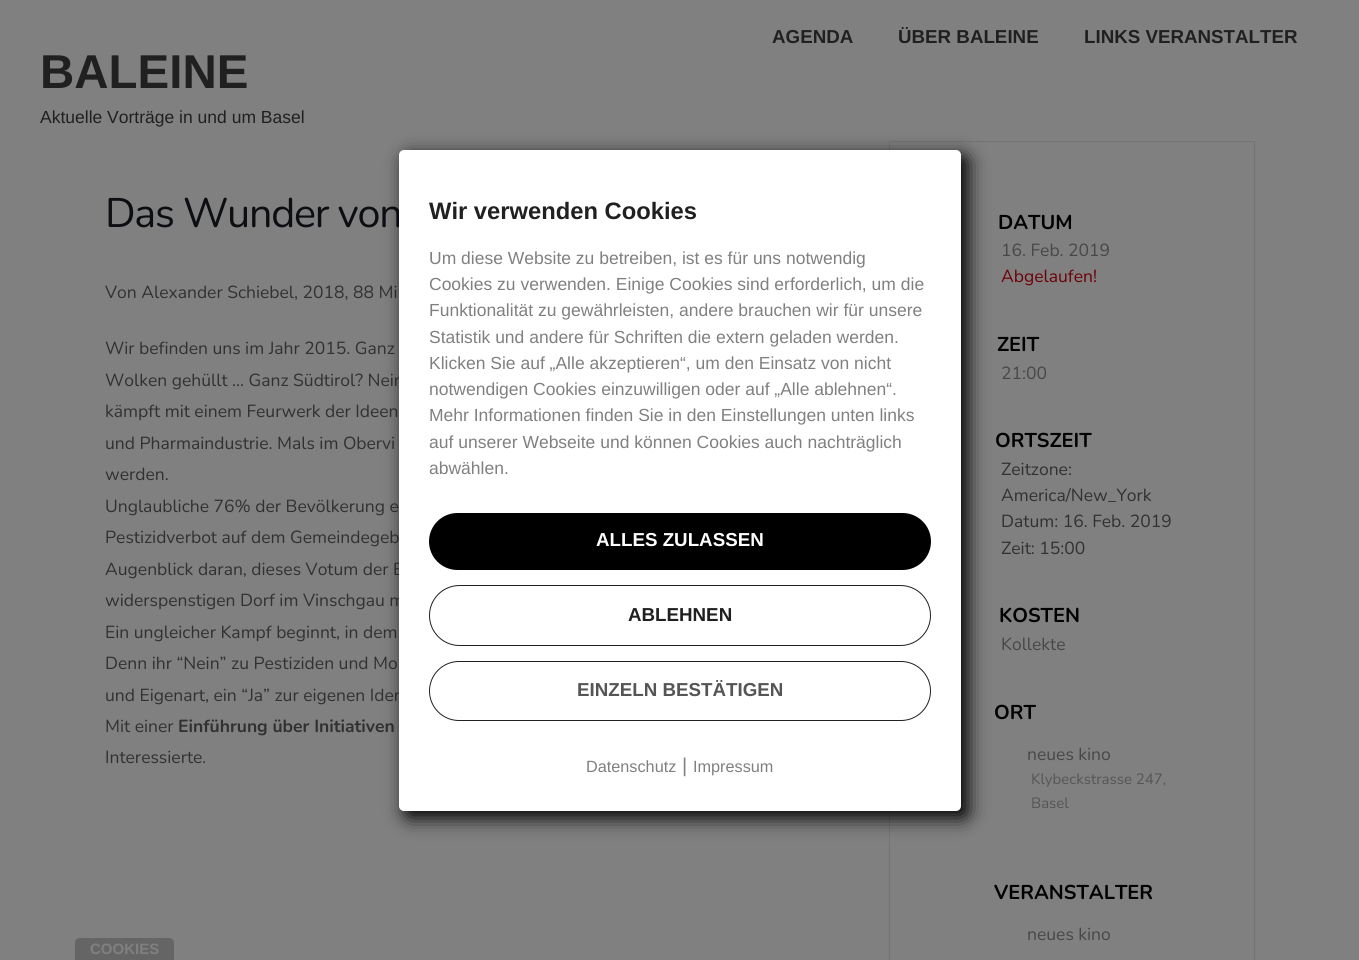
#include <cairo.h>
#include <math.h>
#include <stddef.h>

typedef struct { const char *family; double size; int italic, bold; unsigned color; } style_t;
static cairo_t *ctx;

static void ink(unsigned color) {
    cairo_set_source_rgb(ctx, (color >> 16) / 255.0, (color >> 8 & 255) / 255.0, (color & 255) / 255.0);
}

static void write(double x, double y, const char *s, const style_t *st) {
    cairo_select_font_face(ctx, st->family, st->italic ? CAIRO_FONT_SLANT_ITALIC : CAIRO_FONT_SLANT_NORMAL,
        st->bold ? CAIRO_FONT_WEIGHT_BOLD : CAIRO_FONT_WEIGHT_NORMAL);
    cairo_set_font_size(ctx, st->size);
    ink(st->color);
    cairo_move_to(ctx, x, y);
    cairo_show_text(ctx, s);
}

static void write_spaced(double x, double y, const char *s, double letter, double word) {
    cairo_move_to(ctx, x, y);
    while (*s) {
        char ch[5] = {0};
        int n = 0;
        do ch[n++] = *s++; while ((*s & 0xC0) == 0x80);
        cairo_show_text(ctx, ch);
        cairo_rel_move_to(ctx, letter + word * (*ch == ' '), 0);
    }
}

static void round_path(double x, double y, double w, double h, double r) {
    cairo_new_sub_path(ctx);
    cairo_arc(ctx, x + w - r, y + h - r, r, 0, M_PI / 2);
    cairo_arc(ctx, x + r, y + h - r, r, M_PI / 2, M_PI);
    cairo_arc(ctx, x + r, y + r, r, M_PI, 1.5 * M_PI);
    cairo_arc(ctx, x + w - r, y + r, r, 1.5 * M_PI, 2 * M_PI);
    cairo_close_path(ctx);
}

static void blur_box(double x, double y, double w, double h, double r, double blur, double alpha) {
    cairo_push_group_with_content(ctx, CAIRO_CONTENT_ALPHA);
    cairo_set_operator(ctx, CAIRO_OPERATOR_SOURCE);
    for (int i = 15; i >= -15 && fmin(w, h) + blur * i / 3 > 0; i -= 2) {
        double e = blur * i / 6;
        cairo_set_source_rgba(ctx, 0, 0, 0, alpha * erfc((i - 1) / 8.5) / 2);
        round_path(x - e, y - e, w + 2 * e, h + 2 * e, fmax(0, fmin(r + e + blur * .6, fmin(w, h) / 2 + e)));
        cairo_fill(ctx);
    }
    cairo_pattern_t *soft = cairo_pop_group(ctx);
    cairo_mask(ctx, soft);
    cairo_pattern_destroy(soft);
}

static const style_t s1 = {"Liberation Sans", 18.75, 0, 1, 0x202020};
static const style_t s2 = {"Liberation Sans", 47.5, 0, 1, 0x202020};
static const style_t s3 = {"Liberation Sans", 17.5, 0, 0, 0x202020};
static const style_t s4 = {"Nunito", 17.5, 0, 0, 0x313131};
static const style_t s5 = {"Nunito", 17.5, 0, 1, 0x313131};
static const style_t s6 = {"Nunito", 20, 0, 1, 0x000000};
static const style_t s7 = {"Nunito", 17.5, 0, 0, 0x474747};
static const style_t s8 = {"Nunito", 17.5, 0, 0, 0x6c0006};
static const style_t s9 = {"Nunito", 15, 0, 0, 0x555555};
static const style_t s10 = {"Liberation Sans", 23.75, 0, 1, 0x202020};
static const style_t s11 = {"Liberation Sans", 17.5, 0, 0, 0x808080};
static const style_t s12 = {"Liberation Sans", 18.75, 0, 1, 0xffffff};
static const style_t s13 = {"Liberation Sans", 18.75, 0, 1, 0x555555};
static const style_t s14 = {"Liberation Sans", 16.25, 0, 0, 0x808080};
static const style_t s15 = {"Liberation Sans", 20, 0, 0, 0x808080};
static const style_t s16 = {"Liberation Sans", 15, 0, 1, 0x808080};

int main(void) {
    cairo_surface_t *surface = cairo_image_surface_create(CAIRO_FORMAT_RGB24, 1359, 960);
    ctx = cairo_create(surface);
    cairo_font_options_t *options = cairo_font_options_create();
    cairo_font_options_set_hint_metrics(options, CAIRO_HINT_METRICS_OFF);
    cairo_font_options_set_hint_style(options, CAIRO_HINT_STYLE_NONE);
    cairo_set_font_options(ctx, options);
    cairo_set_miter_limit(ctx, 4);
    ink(0x808080);
    cairo_paint(ctx);
    write(772, 43, "AGENDA", &s1);
    write(898, 43, "ÜBER BALEINE", &s1);
    write(1084, 43, "LINKS VERANSTALTER", &s1);
    write(40, 88, "BALEINE", &s2);
    write(40, 123, "Aktuelle Vorträge in und um Basel", &s3);
    cairo_select_font_face(ctx, "Nunito", CAIRO_FONT_SLANT_NORMAL, CAIRO_FONT_WEIGHT_NORMAL);
    cairo_set_font_size(ctx, 41.25);
    ink(0x0c0e12);
    write_spaced(105, 227, "Das Wunder von", -1.25, 0);
    write(105, 298, "Von Alexander Schiebel, 2018, 88 Mi", &s4);
    write(105, 354, "Wir befinden uns im Jahr 2015. Ganz", &s4);
    write(105, 386, "Wolken gehüllt … Ganz Südtirol? Nein", &s4);
    write(105, 417, "kämpft mit einem Feurwerk der Ideen", &s4);
    write(105, 449, "und Pharmaindustrie. Mals im Obervi", &s4);
    write(105, 480, "werden.", &s4);
    write(105, 512, "Unglaubliche 76% der Bevölkerung e", &s4);
    write(105, 543, "Pestizidverbot auf dem Gemeindegeb", &s4);
    write(105, 575, "Augenblick daran, dieses Votum der B", &s4);
    write(105, 606, "widerspenstigen Dorf im Vinschgau m", &s4);
    write(105, 638, "Ein ungleicher Kampf beginnt, in dem", &s4);
    write(105, 669, "Denn ihr “Nein” zu Pestiziden und Mo", &s4);
    write(105, 701, "und Eigenart, ein “Ja” zur eigenen Iden", &s4);
    write(105, 732, "Mit einer", &s4);
    write(178, 732, "Einführung über Initiativen", &s5);
    write(105, 763, "Interessierte.", &s4);
    cairo_rectangle(ctx, 889.5, 141.5, 365, 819);
    ink(0x737474);
    cairo_set_line_width(ctx, 1);
    cairo_stroke(ctx);
    write(998, 229, "DATUM", &s6);
    write(1001, 256, "16. Feb. 2019", &s7);
    write(1001, 282, "Abgelaufen!", &s8);
    write(997, 351, "ZEIT", &s6);
    write(1001, 379, "21:00", &s7);
    write(995, 447, "ORTSZEIT", &s6);
    write(1001, 475, "Zeitzone:", &s4);
    write(1001, 501, "America/New_York", &s4);
    write(1001, 527, "Datum: 16. Feb. 2019", &s4);
    write(1001, 554, "Zeit: 15:00", &s4);
    write(999, 622, "KOSTEN", &s6);
    write(1001, 650, "Kollekte", &s7);
    write(994, 719, "ORT", &s6);
    write(1027, 760, "neues kino", &s7);
    write(1031, 784, "Klybeckstrasse 247,", &s9);
    write(1031, 808, "Basel", &s9);
    write(994, 899, "VERANSTALTER", &s6);
    write(1027, 940, "neues kino", &s7);
    ink(0x000000);
    blur_box(405, 156, 563, 662, 5, 9.5, 1);
    ink(0xffffff);
    round_path(399, 150, 562, 661, 5);
    cairo_fill(ctx);
    write(429, 219, "Wir verwenden Cookies", &s10);
    write(429, 264, "Um diese Website zu betreiben, ist es für uns notwendig", &s11);
    write(429, 290, "Cookies zu verwenden. Einige Cookies sind erforderlich, um die", &s11);
    write(429, 316, "Funktionalität zu gewährleisten, andere brauchen wir für unsere", &s11);
    write(429, 343, "Statistik und andere für Schriften die extern geladen werden.", &s11);
    write(429, 369, "Klicken Sie auf „Alle akzeptieren“, um den Einsatz von nicht", &s11);
    write(429, 395, "notwendigen Cookies einzuwilligen oder auf „Alle ablehnen“.", &s11);
    write(429, 421, "Mehr Informationen finden Sie in den Einstellungen unten links", &s11);
    write(429, 448, "auf unserer Webseite und können Cookies auch nachträglich", &s11);
    write(429, 474, "abwählen.", &s11);
    ink(0x000000);
    round_path(429, 513, 502, 57, 28.5);
    cairo_fill(ctx);
    write(596, 546, "ALLES ZULASSEN", &s12);
    round_path(429.5, 585.5, 501, 60, 30);
    ink(0x212121);
    cairo_stroke(ctx);
    write(628, 621, "ABLEHNEN", &s1);
    round_path(429.5, 661.5, 501, 59, 29.5);
    ink(0x212121);
    cairo_stroke(ctx);
    write(577, 696, "EINZELN BESTÄTIGEN", &s13);
    write(586, 772, "Datenschutz", &s14);
    write(682, 772, "|", &s15);
    write(693, 772, "Impressum", &s14);
    ink(0x656565);
    cairo_new_path(ctx);
    cairo_move_to(ctx, 80, 938);
    cairo_line_to(ctx, 169, 938);
    cairo_curve_to(ctx, 172, 938, 174, 940, 174, 943);
    cairo_line_to(ctx, 174, 960);
    cairo_line_to(ctx, 75, 960);
    cairo_line_to(ctx, 75, 943);
    cairo_curve_to(ctx, 75, 940, 77, 938, 80, 938);
    cairo_close_path(ctx);
    cairo_fill(ctx);
    write(90, 954, "COOKIES", &s16);
    cairo_surface_write_to_png(surface, "screenshot.png");
    cairo_font_options_destroy(options);
    cairo_destroy(ctx);
    cairo_surface_destroy(surface);
    return 0;
}
